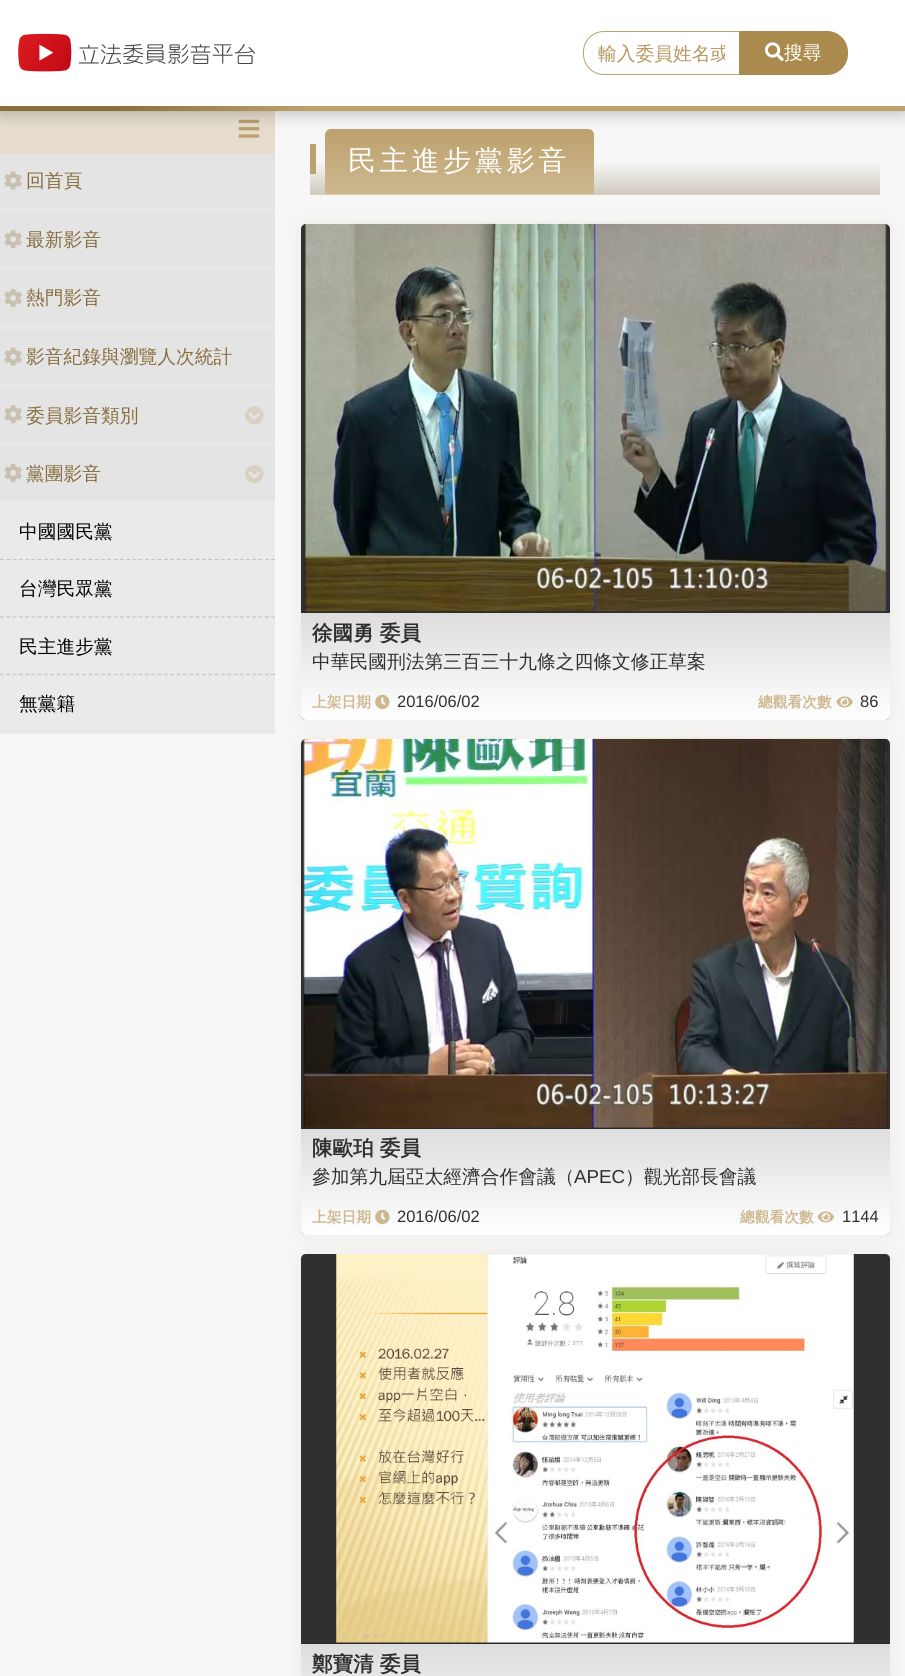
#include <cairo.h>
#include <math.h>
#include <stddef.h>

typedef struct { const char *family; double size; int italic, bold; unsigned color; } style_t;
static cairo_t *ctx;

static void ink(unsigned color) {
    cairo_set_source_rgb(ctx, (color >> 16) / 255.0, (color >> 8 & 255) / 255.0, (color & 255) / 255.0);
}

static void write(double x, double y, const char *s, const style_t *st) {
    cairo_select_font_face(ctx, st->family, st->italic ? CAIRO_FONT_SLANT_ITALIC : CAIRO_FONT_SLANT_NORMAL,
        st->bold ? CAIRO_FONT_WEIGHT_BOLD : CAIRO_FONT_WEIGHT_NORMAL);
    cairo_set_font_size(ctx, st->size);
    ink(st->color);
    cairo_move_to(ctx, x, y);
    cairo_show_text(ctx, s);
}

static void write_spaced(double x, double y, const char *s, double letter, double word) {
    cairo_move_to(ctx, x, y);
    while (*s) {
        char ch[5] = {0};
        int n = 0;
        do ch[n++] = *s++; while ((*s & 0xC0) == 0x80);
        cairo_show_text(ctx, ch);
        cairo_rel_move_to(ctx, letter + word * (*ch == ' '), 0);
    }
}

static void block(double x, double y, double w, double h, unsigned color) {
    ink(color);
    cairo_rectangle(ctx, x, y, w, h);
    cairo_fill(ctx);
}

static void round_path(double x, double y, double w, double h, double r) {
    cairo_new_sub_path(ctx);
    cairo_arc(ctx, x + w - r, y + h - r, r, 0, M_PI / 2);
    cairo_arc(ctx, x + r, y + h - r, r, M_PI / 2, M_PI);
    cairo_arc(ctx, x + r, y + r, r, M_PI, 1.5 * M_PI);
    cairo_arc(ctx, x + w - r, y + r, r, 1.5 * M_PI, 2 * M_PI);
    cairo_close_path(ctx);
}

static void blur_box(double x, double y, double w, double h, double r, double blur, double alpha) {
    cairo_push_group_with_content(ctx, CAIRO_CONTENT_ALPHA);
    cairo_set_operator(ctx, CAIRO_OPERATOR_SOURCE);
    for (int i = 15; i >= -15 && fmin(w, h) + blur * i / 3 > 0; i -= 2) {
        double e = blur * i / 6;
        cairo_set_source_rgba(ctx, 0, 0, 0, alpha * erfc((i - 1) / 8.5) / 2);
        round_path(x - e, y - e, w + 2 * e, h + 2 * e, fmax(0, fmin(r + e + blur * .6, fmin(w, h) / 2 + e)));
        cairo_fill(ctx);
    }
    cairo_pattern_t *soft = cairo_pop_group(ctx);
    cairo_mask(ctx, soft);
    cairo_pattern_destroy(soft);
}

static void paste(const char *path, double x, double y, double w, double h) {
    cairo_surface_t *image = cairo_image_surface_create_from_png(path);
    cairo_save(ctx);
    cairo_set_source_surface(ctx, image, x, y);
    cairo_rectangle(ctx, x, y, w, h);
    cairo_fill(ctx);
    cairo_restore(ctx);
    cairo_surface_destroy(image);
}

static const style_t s1 = {"WenQuanYi Zen Hei Medium", 18.75, 0, 0, 0xb5965c};
static const style_t s2 = {"WenQuanYi Zen Hei Medium", 18.75, 0, 0, 0xffffff};
static const style_t s3 = {"WenQuanYi Zen Hei Medium", 18.75, 0, 0, 0x876e3d};
static const style_t s4 = {"WenQuanYi Zen Hei Medium", 18.75, 0, 0, 0x000000};
static const style_t s5 = {"WenQuanYi Zen Hei", 20.5, 0, 1, 0x303030};
static const style_t s6 = {"WenQuanYi Zen Hei Medium", 18.75, 0, 0, 0x303030};
static const style_t s7 = {"WenQuanYi Zen Hei", 14.75, 0, 1, 0xcdb890};
static const style_t s8 = {"Liberation Sans", 16.5, 0, 0, 0x303030};
static const style_t s9 = {"Liberation Sans", 18.75, 0, 0, 0x303030};

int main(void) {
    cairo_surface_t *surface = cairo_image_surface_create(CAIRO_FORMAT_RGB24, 905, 1676);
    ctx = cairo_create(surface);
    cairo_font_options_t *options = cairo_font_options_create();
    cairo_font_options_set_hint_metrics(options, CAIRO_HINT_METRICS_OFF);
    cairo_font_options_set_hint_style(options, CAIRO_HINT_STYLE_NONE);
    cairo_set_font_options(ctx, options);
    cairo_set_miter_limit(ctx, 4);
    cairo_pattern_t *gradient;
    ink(0xf7f7f7);
    cairo_paint(ctx);
    block(0, 111, 275, 43, 0xe6ddce);
    paste("pic3.png", 238, 119, 22, 19);
    gradient = cairo_pattern_create_linear(595, 129, 595, 194);
    cairo_pattern_add_color_stop_rgba(gradient, 0.5, 0.969, 0.969, 0.969, 1);
    cairo_pattern_add_color_stop_rgba(gradient, 1, 0.816, 0.796, 0.753, 1);
    cairo_set_source(ctx, gradient);
    cairo_pattern_destroy(gradient);
    cairo_rectangle(ctx, 310, 163, 570, 31);
    cairo_fill(ctx);
    gradient = cairo_pattern_create_linear(459, 129, 459, 194);
    cairo_pattern_add_color_stop_rgba(gradient, 0, 0.741, 0.631, 0.427, 1);
    cairo_pattern_add_color_stop_rgba(gradient, 1, 0.804, 0.722, 0.565, 1);
    cairo_set_source(ctx, gradient);
    cairo_pattern_destroy(gradient);
    cairo_new_path(ctx);
    cairo_move_to(ctx, 331, 129);
    cairo_line_to(ctx, 588, 129);
    cairo_curve_to(ctx, 591.5, 129, 594, 131.5, 594, 135);
    cairo_line_to(ctx, 594, 194);
    cairo_line_to(ctx, 325, 194);
    cairo_line_to(ctx, 325, 135);
    cairo_curve_to(ctx, 325, 131.5, 327.5, 129, 331, 129);
    cairo_close_path(ctx);
    cairo_fill(ctx);
    ink(0x000000);
    blur_box(0, 0, 905, 111, 0, 9.5, 0.3);
    gradient = cairo_pattern_create_linear(0, 56, 905, 56);
    cairo_pattern_add_color_stop_rgba(gradient, 0.12, 0.529, 0.431, 0.239, 1);
    cairo_pattern_add_color_stop_rgba(gradient, 0.34, 0.741, 0.631, 0.427, 1);
    cairo_set_source(ctx, gradient);
    cairo_pattern_destroy(gradient);
    cairo_rectangle(ctx, 0, 106, 905, 5);
    cairo_fill(ctx);
    block(0, 0, 905, 106, 0xffffff);
    paste("pic1.png", 18, 33, 237, 39);
    cairo_new_path(ctx);
    cairo_move_to(ctx, 604, 31.5);
    cairo_line_to(ctx, 739.5, 31.5);
    cairo_line_to(ctx, 739.5, 74.5);
    cairo_line_to(ctx, 604, 74.5);
    cairo_curve_to(ctx, 592.5, 74.5, 583.5, 65.5, 583.5, 54);
    cairo_line_to(ctx, 583.5, 52);
    cairo_curve_to(ctx, 583.5, 40.5, 592.5, 31.5, 604, 31.5);
    cairo_close_path(ctx);
    ink(0xbda16d);
    cairo_set_line_width(ctx, 1);
    cairo_stroke(ctx);
    cairo_save(ctx);
    cairo_rectangle(ctx, 598, 43, 127, 23);
    cairo_clip(ctx);
    write(598, 60, "輸入委員姓名或", &s1);
    cairo_restore(ctx);
    ink(0xaa8a4d);
    cairo_new_path(ctx);
    cairo_move_to(ctx, 739, 31);
    cairo_line_to(ctx, 827, 31);
    cairo_curve_to(ctx, 838.5, 31, 848, 40.5, 848, 52);
    cairo_line_to(ctx, 848, 54);
    cairo_curve_to(ctx, 848, 65.5, 838.5, 75, 827, 75);
    cairo_line_to(ctx, 739, 75);
    cairo_close_path(ctx);
    cairo_fill(ctx);
    paste("pic2.png", 765, 42, 19, 19);
    write(784, 59, "搜尋", &s2);
    block(0, 208, 275, 526, 0xeaeaea);
    block(0, 209, 275, 1, 0xe5e5e5);
    block(0, 154, 275, 54, 0xe4e4e4);
    paste("pic4.png", 4, 171, 18, 19);
    write(26, 187, "回首頁", &s3);
    block(0, 268, 275, 1, 0xe5e5e5);
    block(0, 211, 275, 55, 0xe4e4e4);
    paste("pic5.png", 4, 230, 18, 19);
    write(26, 246, "最新影音", &s3);
    block(0, 326, 275, 1, 0xe5e5e5);
    block(0, 270, 275, 55, 0xe4e4e4);
    paste("pic6.png", 4, 289, 18, 18);
    write(26, 304, "熱門影音", &s3);
    block(0, 385, 275, 1, 0xe5e5e5);
    block(0, 329, 275, 55, 0xe4e4e4);
    paste("pic7.png", 4, 347, 18, 19);
    write(26, 363, "影音紀錄與瀏覽人次統計", &s3);
    block(0, 444, 275, 1, 0xe5e5e5);
    block(0, 388, 275, 55, 0xe4e4e4);
    paste("pic5.png", 4, 405, 18, 19);
    write(26, 422, "委員影音類別", &s3);
    paste("pic8.png", 245, 406, 19, 19);
    block(0, 731, 275, 1, 0xe5e5e5);
    block(0, 446, 275, 55, 0xe4e4e4);
    paste("pic6.png", 4, 464, 18, 18);
    write(26, 480, "黨團影音", &s3);
    paste("pic9.png", 245, 465, 19, 19);
    cairo_new_path(ctx);
    cairo_move_to(ctx, 0, 559.5);
    cairo_line_to(ctx, 275, 559.5);
    ink(0xc4c4c4);
    cairo_set_line_width(ctx, 1.2);
    cairo_set_dash(ctx, (double[]){3.75, 2.56}, 2, 0);
    cairo_stroke(ctx);
    write(19, 538, "中國國民黨", &s4);
    cairo_new_path(ctx);
    cairo_move_to(ctx, 0, 617);
    cairo_line_to(ctx, 275, 617);
    ink(0xc4c4c4);
    cairo_stroke(ctx);
    write(19, 595, "台灣民眾黨", &s4);
    cairo_new_path(ctx);
    cairo_move_to(ctx, 0, 674.5);
    cairo_line_to(ctx, 275, 674.5);
    ink(0xc4c4c4);
    cairo_stroke(ctx);
    write(19, 653, "民主進步黨", &s4);
    write(19, 710, "無黨籍", &s4);
    block(310, 194, 570, 1, 0xdaccb2);
    block(310, 144, 6, 30, 0xbda16d);
    cairo_set_font_size(ctx, 28);
    ink(0xffffff);
    write_spaced(348, 170, "民主進步黨影音", 3.75, 0);
    ink(0x876e3d);
    blur_box(301, 224, 589, 496, 5, 9, 0.1);
    ink(0x303030);
    round_path(301, 224, 589, 496, 5);
    cairo_fill(ctx);
    paste("pic10.png", 305, 223, 582, 389);
    cairo_set_source_rgba(ctx, 0, 0, 0, 0.12);
    cairo_rectangle(ctx, 301, 611, 589, 1);
    cairo_fill(ctx);
    gradient = cairo_pattern_create_linear(596, 613, 596, 720);
    cairo_pattern_add_color_stop_rgba(gradient, 0, 0.867, 0.867, 0.867, 1);
    cairo_pattern_add_color_stop_rgba(gradient, 1, 1, 1, 1, 1);
    cairo_set_source(ctx, gradient);
    cairo_pattern_destroy(gradient);
    cairo_new_path(ctx);
    cairo_move_to(ctx, 301, 613);
    cairo_line_to(ctx, 890, 613);
    cairo_line_to(ctx, 890, 715);
    cairo_curve_to(ctx, 890, 718, 888, 720, 885, 720);
    cairo_line_to(ctx, 306, 720);
    cairo_curve_to(ctx, 303, 720, 301, 718, 301, 715);
    cairo_close_path(ctx);
    cairo_fill(ctx);
    write(312, 640, "徐國勇 委員", &s5);
    write(312, 668, "中華民國刑法第三百三十九條之四條文修正草案", &s6);
    paste("pic11.png", 375, 694, 15, 16);
    write(312, 707, "上架日期", &s7);
    write(397, 707, "2016/06/02", &s8);
    paste("pic12.png", 836, 696, 17, 12);
    write(758, 707, "總觀看次數", &s7);
    write(860, 707, "86", &s8);
    ink(0x876e3d);
    blur_box(301, 739, 589, 496, 5, 9, 0.1);
    ink(0x303030);
    round_path(301, 739, 589, 496, 5);
    cairo_fill(ctx);
    paste("pic13.png", 303, 738, 585, 390);
    block(301, 1128, 589, 1, 0x2a2a2a);
    gradient = cairo_pattern_create_linear(596, 1129, 596, 1235);
    cairo_pattern_add_color_stop_rgba(gradient, 0, 0.867, 0.867, 0.867, 1);
    cairo_pattern_add_color_stop_rgba(gradient, 1, 1, 1, 1, 1);
    cairo_set_source(ctx, gradient);
    cairo_pattern_destroy(gradient);
    cairo_new_path(ctx);
    cairo_move_to(ctx, 301, 1129);
    cairo_line_to(ctx, 890, 1129);
    cairo_line_to(ctx, 890, 1230);
    cairo_curve_to(ctx, 890, 1233, 888, 1235, 885, 1235);
    cairo_line_to(ctx, 306, 1235);
    cairo_curve_to(ctx, 303, 1235, 301, 1233, 301, 1230);
    cairo_close_path(ctx);
    cairo_fill(ctx);
    write(312, 1155, "陳歐珀 委員", &s5);
    write(312, 1183, "參加第九屆亞太經濟合作會議（", &s6);
    write(574, 1183, "APEC", &s9);
    write(625, 1183, "）觀光部長會議", &s6);
    paste("pic14.png", 375, 1209, 15, 16);
    write(312, 1222, "上架日期", &s7);
    write(397, 1222, "2016/06/02", &s8);
    paste("pic15.png", 817, 1211, 17, 12);
    write(740, 1222, "總觀看次數", &s7);
    write(842, 1222, "1144", &s8);
    ink(0x876e3d);
    blur_box(301, 1254, 589, 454, 5, 9, 0.1);
    ink(0x303030);
    cairo_new_path(ctx);
    cairo_move_to(ctx, 306, 1254);
    cairo_line_to(ctx, 885, 1254);
    cairo_curve_to(ctx, 888, 1254, 890, 1256, 890, 1259);
    cairo_line_to(ctx, 890, 1676);
    cairo_line_to(ctx, 301, 1676);
    cairo_line_to(ctx, 301, 1259);
    cairo_curve_to(ctx, 301, 1256, 303, 1254, 306, 1254);
    cairo_close_path(ctx);
    cairo_fill(ctx);
    paste("pic16.png", 336, 1254, 518, 389);
    block(301, 1643, 589, 1, 0x2a2a2a);
    gradient = cairo_pattern_create_linear(596, 1644, 596, 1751);
    cairo_pattern_add_color_stop_rgba(gradient, 0, 0.867, 0.867, 0.867, 1);
    cairo_pattern_add_color_stop_rgba(gradient, 1, 1, 1, 1, 1);
    cairo_set_source(ctx, gradient);
    cairo_pattern_destroy(gradient);
    cairo_rectangle(ctx, 301, 1644, 589, 32);
    cairo_fill(ctx);
    write(312, 1671, "鄭寶清 委員", &s5);
    cairo_surface_write_to_png(surface, "screenshot.png");
    cairo_font_options_destroy(options);
    cairo_destroy(ctx);
    cairo_surface_destroy(surface);
    return 0;
}
